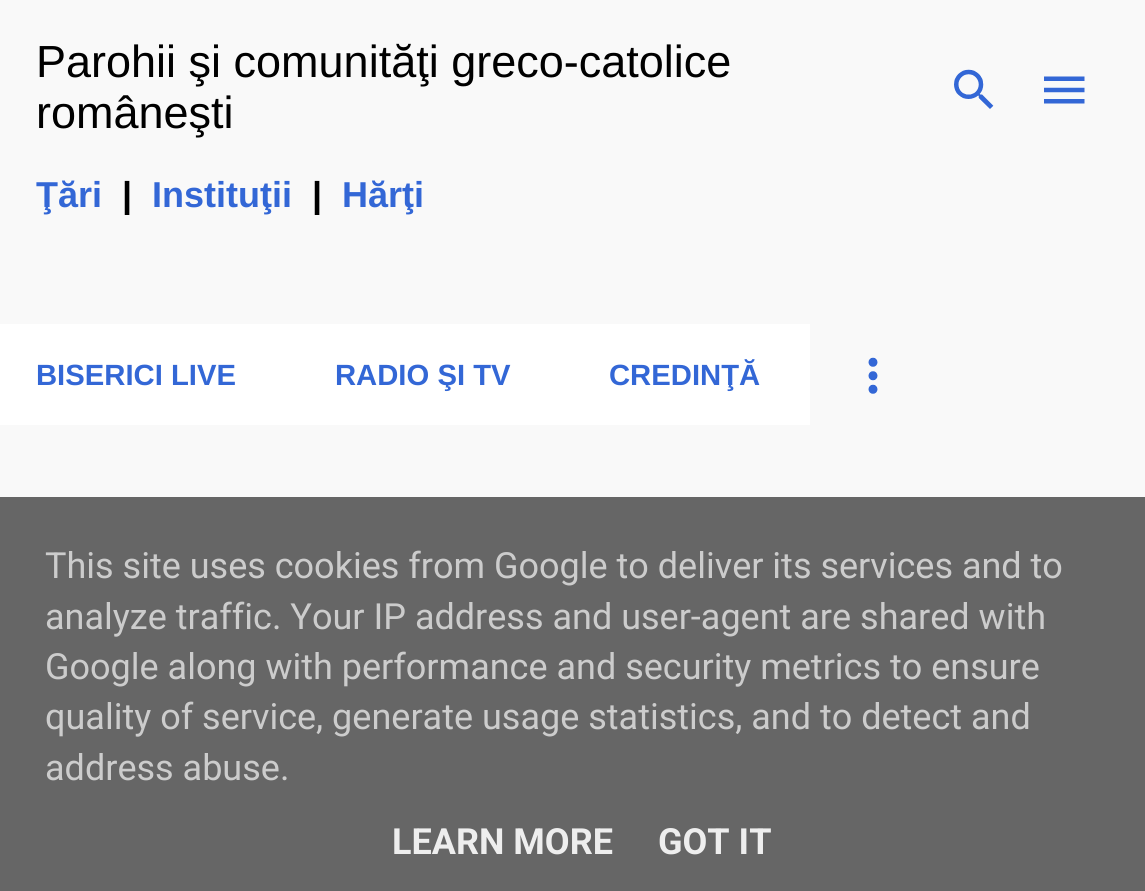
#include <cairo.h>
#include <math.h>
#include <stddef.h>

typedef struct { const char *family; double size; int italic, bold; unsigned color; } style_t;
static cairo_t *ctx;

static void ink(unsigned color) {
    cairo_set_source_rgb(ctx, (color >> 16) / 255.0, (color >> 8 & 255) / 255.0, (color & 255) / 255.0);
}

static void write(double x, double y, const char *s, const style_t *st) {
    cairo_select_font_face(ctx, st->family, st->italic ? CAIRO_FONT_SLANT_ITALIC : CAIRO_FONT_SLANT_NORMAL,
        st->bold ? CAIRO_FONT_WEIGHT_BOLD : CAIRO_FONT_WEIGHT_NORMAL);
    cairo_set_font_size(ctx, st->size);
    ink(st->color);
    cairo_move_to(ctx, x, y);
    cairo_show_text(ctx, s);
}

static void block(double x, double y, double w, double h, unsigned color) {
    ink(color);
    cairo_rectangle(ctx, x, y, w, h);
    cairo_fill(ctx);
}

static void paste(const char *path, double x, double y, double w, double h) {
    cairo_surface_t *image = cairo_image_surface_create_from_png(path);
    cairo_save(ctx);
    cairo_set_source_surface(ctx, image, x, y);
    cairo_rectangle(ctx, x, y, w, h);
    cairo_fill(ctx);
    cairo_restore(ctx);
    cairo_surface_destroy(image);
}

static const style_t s1 = {"Liberation Sans", 45, 0, 0, 0x000000};
static const style_t s2 = {"Liberation Sans", 36, 0, 1, 0x3367d6};
static const style_t s3 = {"Liberation Sans", 36, 0, 1, 0x000000};
static const style_t s4 = {"Liberation Sans", 29.25, 0, 1, 0x3367d6};
static const style_t s5 = {"Roboto", 36, 0, 0, 0xcccccc};
static const style_t s6 = {"Roboto", 36, 0, 1, 0xeeeeee};

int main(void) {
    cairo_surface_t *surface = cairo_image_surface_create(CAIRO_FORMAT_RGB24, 1145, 891);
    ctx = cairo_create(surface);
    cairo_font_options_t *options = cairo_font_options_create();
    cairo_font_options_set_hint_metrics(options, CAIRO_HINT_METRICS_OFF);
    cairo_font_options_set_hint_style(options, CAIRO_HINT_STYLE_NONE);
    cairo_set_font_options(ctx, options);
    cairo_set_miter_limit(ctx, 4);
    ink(0xf9f9f9);
    cairo_paint(ctx);
    write(36, 77, "Parohii şi comunităţi greco-catolice", &s1);
    write(36, 128, "româneşti", &s1);
    write(36, 207, "Ţări", &s2);
    write(122, 207, "|", &s3);
    write(152, 207, "Instituţii", &s2);
    write(312, 207, "|", &s3);
    write(342, 207, "Hărţi", &s2);
    paste("pic1.png", 954, 69, 40, 40);
    paste("pic2.png", 1044, 76, 41, 28);
    block(0, 324, 810, 101, 0xffffff);
    write(36, 385, "BISERICI LIVE", &s4);
    write(335, 385, "RADIO ŞI TV", &s4);
    write(609, 385, "CREDINŢĂ", &s4);
    paste("pic3.png", 868, 357, 10, 37);
    block(0, 497, 1145, 394, 0x666666);
    write(45, 578, "This site uses cookies from Google to deliver its services and to", &s5);
    write(45, 629, "analyze traffic. Your IP address and user-agent are shared with", &s5);
    write(45, 679, "Google along with performance and security metrics to ensure", &s5);
    write(45, 729, "quality of service, generate usage statistics, and to detect and", &s5);
    write(45, 780, "address abuse.", &s5);
    write(392, 854, "LEARN MORE", &s6);
    write(658, 854, "GOT IT", &s6);
    cairo_surface_write_to_png(surface, "screenshot.png");
    cairo_font_options_destroy(options);
    cairo_destroy(ctx);
    cairo_surface_destroy(surface);
    return 0;
}
